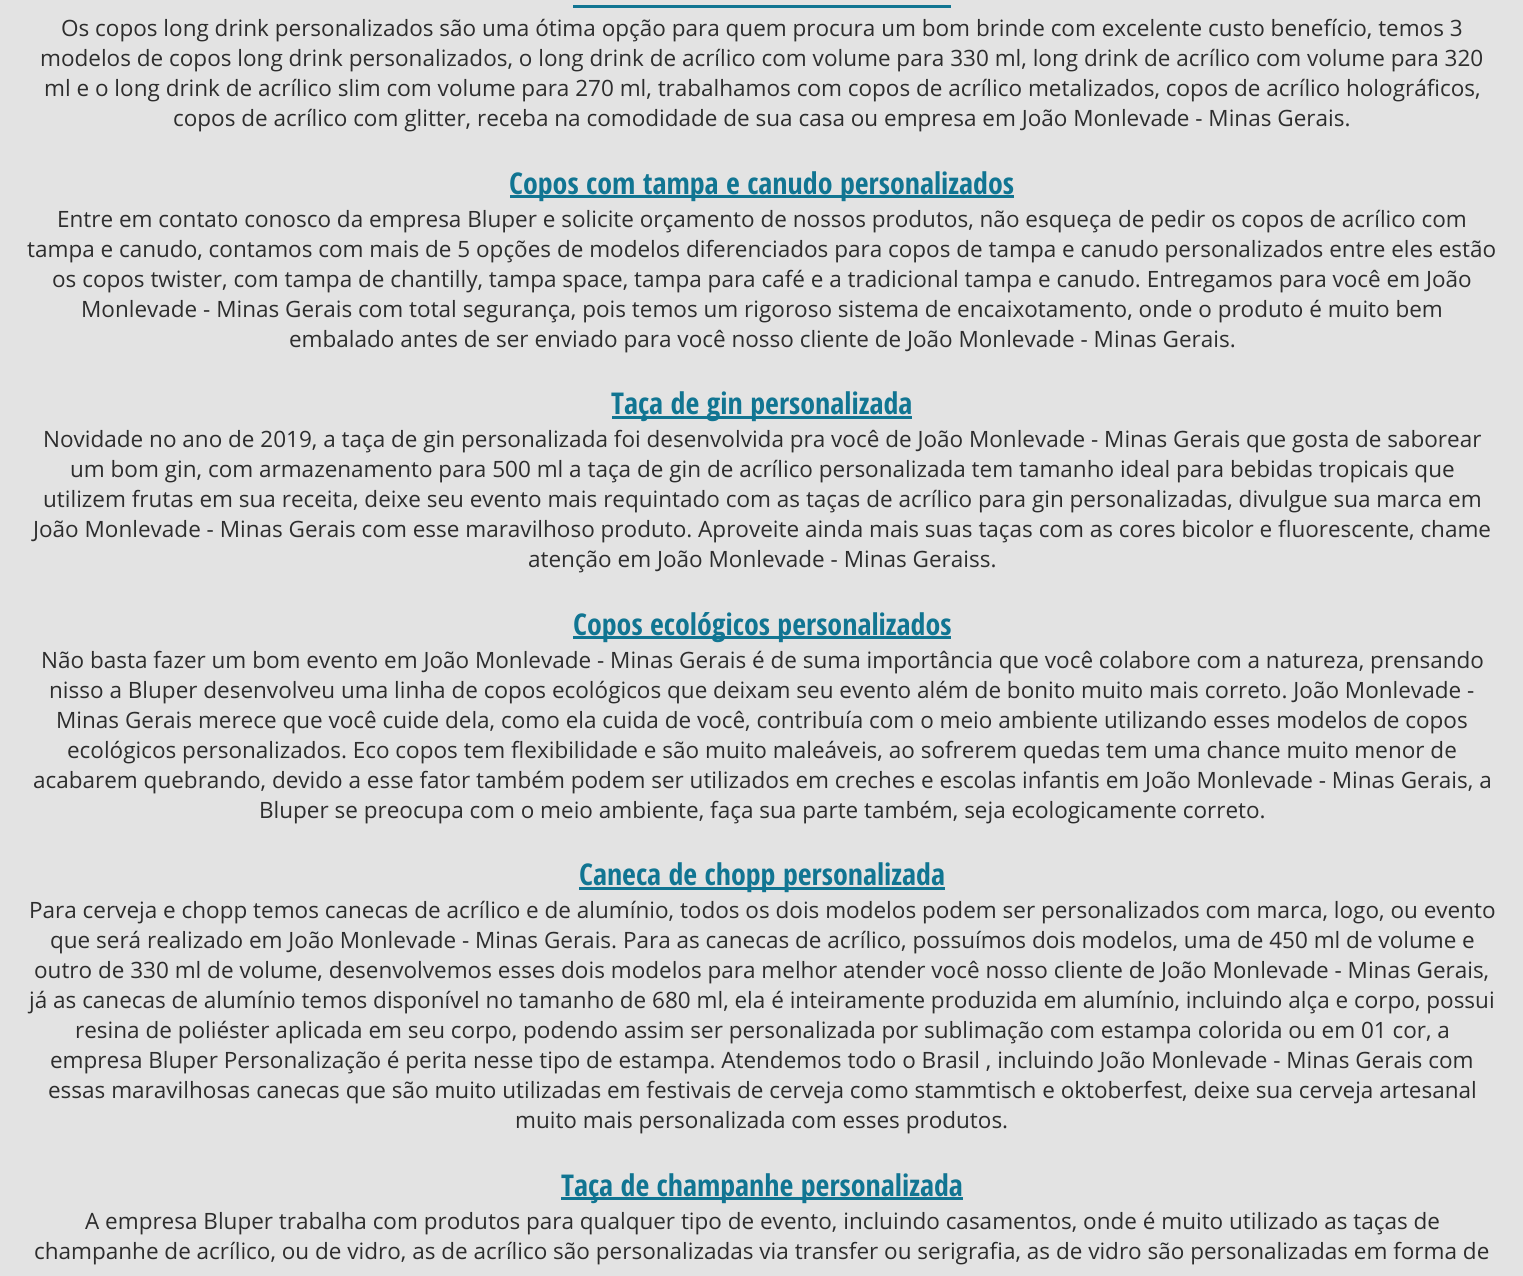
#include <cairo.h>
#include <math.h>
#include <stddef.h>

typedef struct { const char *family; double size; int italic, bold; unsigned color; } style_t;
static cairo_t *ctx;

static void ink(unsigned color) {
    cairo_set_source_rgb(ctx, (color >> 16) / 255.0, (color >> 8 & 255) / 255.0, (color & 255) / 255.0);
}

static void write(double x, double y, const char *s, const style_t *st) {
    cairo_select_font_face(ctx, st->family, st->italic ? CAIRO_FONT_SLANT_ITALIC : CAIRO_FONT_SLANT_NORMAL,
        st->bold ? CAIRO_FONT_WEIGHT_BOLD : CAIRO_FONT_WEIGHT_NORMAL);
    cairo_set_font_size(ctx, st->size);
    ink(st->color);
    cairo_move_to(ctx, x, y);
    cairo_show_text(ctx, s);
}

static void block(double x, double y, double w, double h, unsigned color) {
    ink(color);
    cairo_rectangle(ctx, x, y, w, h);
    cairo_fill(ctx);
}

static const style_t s1 = {"Open Sans", 22.5, 0, 0, 0x2d2d2d};
static const style_t s2 = {"Open Sans Condensed", 30, 0, 1, 0x117592};

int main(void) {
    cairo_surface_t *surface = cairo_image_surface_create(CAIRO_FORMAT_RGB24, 1523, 1276);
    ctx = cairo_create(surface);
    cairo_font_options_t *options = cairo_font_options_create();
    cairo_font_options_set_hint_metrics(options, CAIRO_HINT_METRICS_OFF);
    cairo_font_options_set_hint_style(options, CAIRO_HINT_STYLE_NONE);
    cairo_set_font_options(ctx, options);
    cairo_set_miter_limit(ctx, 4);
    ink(0xe3e3e3);
    cairo_paint(ctx);
    block(573, 5, 378, 3, 0x117592);
    write(61, 36, "Os copos long drink personalizados são uma ótima opção para quem procura um bom brinde com excelente custo benefício, temos 3", &s1);
    write(40, 66, "modelos de copos long drink personalizados, o long drink de acrílico com volume para 330 ml, long drink de acrílico com volume para 320", &s1);
    write(44, 96, "ml e o long drink de acrílico slim com volume para 270 ml, trabalhamos com copos de acrílico metalizados, copos de acrílico holográficos,", &s1);
    write(173, 126, "copos de acrílico com glitter, receba na comodidade de sua casa ou empresa em João Monlevade - Minas Gerais.", &s1);
    block(510, 195, 504, 3, 0x117592);
    write(509, 194, "Copos com tampa e canudo personalizados", &s2);
    write(57, 227, "Entre em contato conosco da empresa Bluper e solicite orçamento de nossos produtos, não esqueça de pedir os copos de acrílico com", &s1);
    write(27, 257, "tampa e canudo, contamos com mais de 5 opções de modelos diferenciados para copos de tampa e canudo personalizados entre eles estão", &s1);
    write(52, 287, "os copos twister, com tampa de chantilly, tampa space, tampa para café e a tradicional tampa e canudo. Entregamos para você em João", &s1);
    write(81, 317, "Monlevade - Minas Gerais com total segurança, pois temos um rigoroso sistema de encaixotamento, onde o produto é muito bem", &s1);
    write(289, 347, "embalado antes de ser enviado para você nosso cliente de João Monlevade - Minas Gerais.", &s1);
    block(612, 416, 300, 3, 0x117592);
    write(611, 414, "Taça de gin personalizada", &s2);
    write(43, 447, "Novidade no ano de 2019, a taça de gin personalizada foi desenvolvida pra você de João Monlevade - Minas Gerais que gosta de saborear", &s1);
    write(70, 477, "um bom gin, com armazenamento para 500 ml a taça de gin de acrílico personalizada tem tamanho ideal para bebidas tropicais que", &s1);
    write(43, 507, "utilizem frutas em sua receita, deixe seu evento mais requintado com as taças de acrílico para gin personalizadas, divulgue sua marca em", &s1);
    write(33, 537, "João Monlevade - Minas Gerais com esse maravilhoso produto. Aproveite ainda mais suas taças com as cores bicolor e fluorescente, chame", &s1);
    write(528, 567, "atenção em João Monlevade - Minas Geraiss.", &s1);
    block(573, 636, 378, 3, 0x117592);
    write(573, 635, "Copos ecológicos personalizados", &s2);
    write(41, 668, "Não basta fazer um bom evento em João Monlevade - Minas Gerais é de suma importância que você colabore com a natureza, prensando", &s1);
    write(49, 698, "nisso a Bluper desenvolveu uma linha de copos ecológicos que deixam seu evento além de bonito muito mais correto. João Monlevade -", &s1);
    write(56, 728, "Minas Gerais merece que você cuide dela, como ela cuida de você, contribuía com o meio ambiente utilizando esses modelos de copos", &s1);
    write(67, 758, "ecológicos personalizados. Eco copos tem flexibilidade e são muito maleáveis, ao sofrerem quedas tem uma chance muito menor de", &s1);
    write(33, 788, "acabarem quebrando, devido a esse fator também podem ser utilizados em creches e escolas infantis em João Monlevade - Minas Gerais, a", &s1);
    write(259, 818, "Bluper se preocupa com o meio ambiente, faça sua parte também, seja ecologicamente correto.", &s1);
    block(579, 887, 366, 3, 0x117592);
    write(579, 885, "Caneca de chopp personalizada", &s2);
    write(29, 918, "Para cerveja e chopp temos canecas de acrílico e de alumínio, todos os dois modelos podem ser personalizados com marca, logo, ou evento", &s1);
    write(50, 948, "que será realizado em João Monlevade - Minas Gerais. Para as canecas de acrílico, possuímos dois modelos, uma de 450 ml de volume e", &s1);
    write(34, 978, "outro de 330 ml de volume, desenvolvemos esses dois modelos para melhor atender você nosso cliente de João Monlevade - Minas Gerais,", &s1);
    write(29, 1008, "já as canecas de alumínio temos disponível no tamanho de 680 ml, ela é inteiramente produzida em alumínio, incluindo alça e corpo, possui", &s1);
    write(75, 1038, "resina de poliéster aplicada em seu corpo, podendo assim ser personalizada por sublimação com estampa colorida ou em 01 cor, a", &s1);
    write(50, 1068, "empresa Bluper Personalização é perita nesse tipo de estampa. Atendemos todo o Brasil , incluindo João Monlevade - Minas Gerais com", &s1);
    write(48, 1098, "essas maravilhosas canecas que são muito utilizadas em festivais de cerveja como stammtisch e oktoberfest, deixe sua cerveja artesanal", &s1);
    write(515, 1128, "muito mais personalizada com esses produtos.", &s1);
    block(561, 1197, 402, 3, 0x117592);
    write(561, 1196, "Taça de champanhe personalizada", &s2);
    write(85, 1229, "A empresa Bluper trabalha com produtos para qualquer tipo de evento, incluindo casamentos, onde é muito utilizado as taças de", &s1);
    write(34, 1259, "champanhe de acrílico, ou de vidro, as de acrílico são personalizadas via transfer ou serigrafia, as de vidro são personalizadas em forma de", &s1);
    cairo_surface_write_to_png(surface, "screenshot.png");
    cairo_font_options_destroy(options);
    cairo_destroy(ctx);
    cairo_surface_destroy(surface);
    return 0;
}
